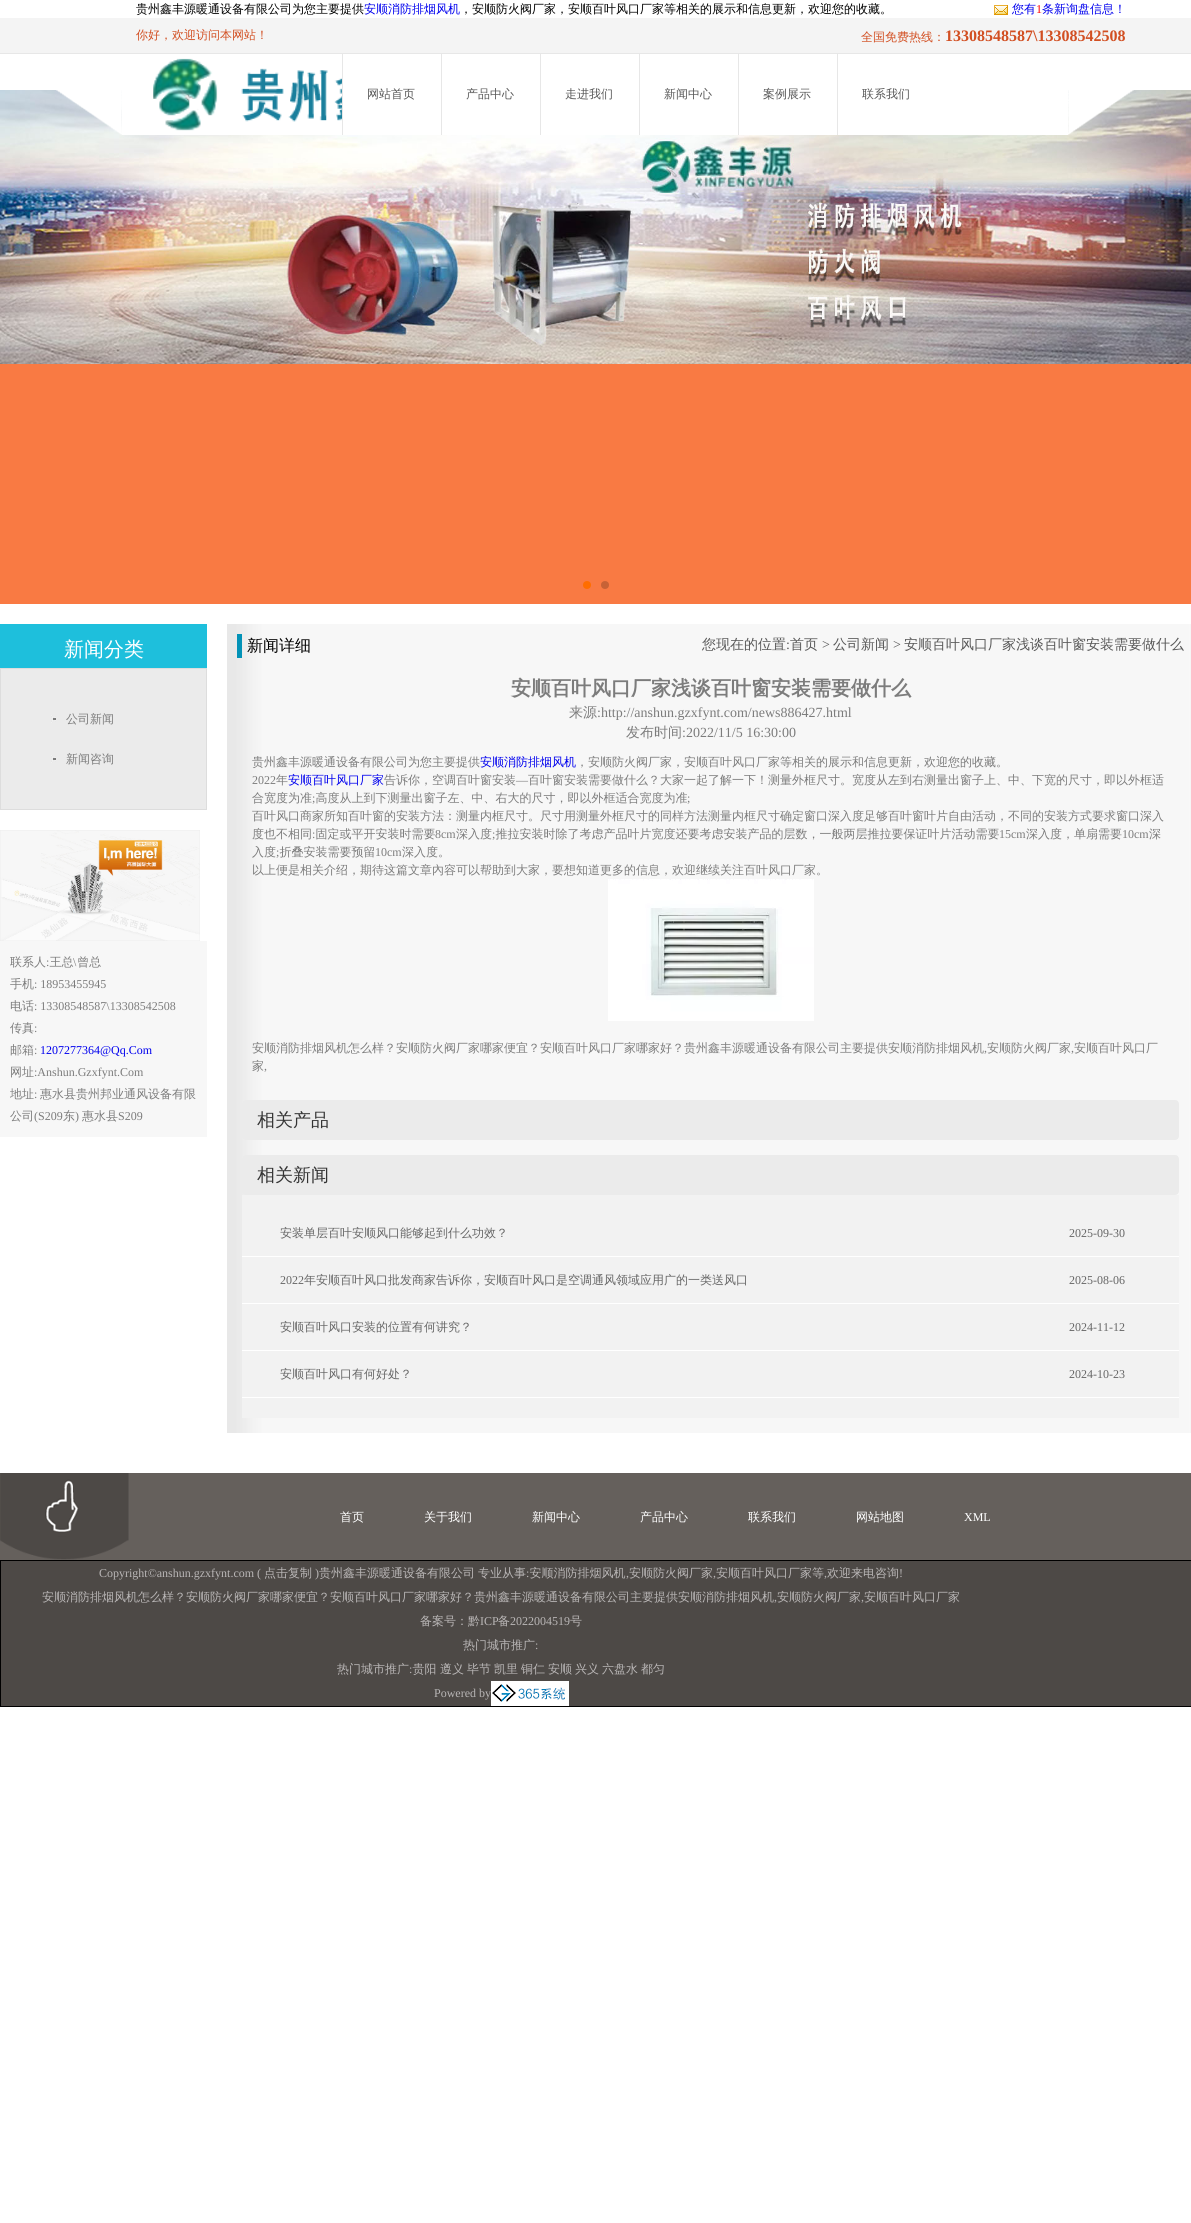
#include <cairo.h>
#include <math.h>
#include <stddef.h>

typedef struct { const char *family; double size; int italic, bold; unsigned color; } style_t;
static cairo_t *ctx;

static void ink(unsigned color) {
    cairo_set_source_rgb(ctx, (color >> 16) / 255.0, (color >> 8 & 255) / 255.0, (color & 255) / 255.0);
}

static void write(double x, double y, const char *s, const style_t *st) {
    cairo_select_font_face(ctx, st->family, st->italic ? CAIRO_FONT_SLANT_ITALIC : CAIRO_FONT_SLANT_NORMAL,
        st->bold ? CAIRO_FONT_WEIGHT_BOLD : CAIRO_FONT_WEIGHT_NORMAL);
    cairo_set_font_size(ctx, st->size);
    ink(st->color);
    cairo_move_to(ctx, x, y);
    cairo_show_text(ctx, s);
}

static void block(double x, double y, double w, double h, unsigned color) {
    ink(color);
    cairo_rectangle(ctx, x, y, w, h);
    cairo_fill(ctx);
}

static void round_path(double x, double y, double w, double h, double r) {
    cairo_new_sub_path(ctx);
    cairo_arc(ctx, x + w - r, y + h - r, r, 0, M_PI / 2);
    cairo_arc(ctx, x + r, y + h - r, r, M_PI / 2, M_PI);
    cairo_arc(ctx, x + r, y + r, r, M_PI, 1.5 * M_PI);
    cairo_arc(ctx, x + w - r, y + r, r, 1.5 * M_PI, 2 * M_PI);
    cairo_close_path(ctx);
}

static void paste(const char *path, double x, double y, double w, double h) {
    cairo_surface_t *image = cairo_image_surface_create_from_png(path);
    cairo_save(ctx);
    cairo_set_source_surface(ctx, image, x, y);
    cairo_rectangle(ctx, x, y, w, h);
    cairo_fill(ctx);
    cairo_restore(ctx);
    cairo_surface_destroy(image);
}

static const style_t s1 = {"WenQuanYi Zen Hei Medium", 12, 0, 0, 0x000000};
static const style_t s2 = {"WenQuanYi Zen Hei Medium", 12, 0, 0, 0x0000ee};
static const style_t s3 = {"Liberation Serif", 12, 0, 0, 0xff0000};
static const style_t s4 = {"WenQuanYi Zen Hei Medium", 12, 0, 0, 0xd24f22};
static const style_t s5 = {"Liberation Serif", 16, 0, 1, 0xd24f22};
static const style_t s6 = {"WenQuanYi Zen Hei Medium", 12, 0, 0, 0x585858};
static const style_t s7 = {"WenQuanYi Zen Hei Medium", 20, 0, 0, 0xffffff};
static const style_t s8 = {"WenQuanYi Zen Hei Medium", 12, 0, 0, 0x7c7c7c};
static const style_t s9 = {"Liberation Serif", 12, 0, 0, 0x7c7c7c};
static const style_t s10 = {"Liberation Serif", 12, 0, 0, 0x0000ee};
static const style_t s11 = {"WenQuanYi Zen Hei Medium", 16, 0, 0, 0x000000};
static const style_t s12 = {"WenQuanYi Zen Hei Medium", 14, 0, 0, 0x585858};
static const style_t s13 = {"Liberation Serif", 14, 0, 0, 0x585858};
static const style_t s14 = {"WenQuanYi Zen Hei", 20, 0, 1, 0x7c7c7c};
static const style_t s15 = {"WenQuanYi Zen Hei Medium", 14, 0, 0, 0x7c7c7c};
static const style_t s16 = {"Liberation Serif", 14, 0, 0, 0x7c7c7c};
static const style_t s17 = {"WenQuanYi Zen Hei Medium", 18, 0, 0, 0x333333};
static const style_t s18 = {"WenQuanYi Zen Hei Medium", 12, 0, 0, 0x666666};
static const style_t s19 = {"Liberation Serif", 12, 0, 0, 0x666666};
static const style_t s20 = {"WenQuanYi Zen Hei Medium", 12, 0, 0, 0xffffff};
static const style_t s21 = {"Liberation Serif", 12, 0, 0, 0xffffff};
static const style_t s22 = {"Liberation Serif", 12, 0, 0, 0xb9b6b6};
static const style_t s23 = {"WenQuanYi Zen Hei Medium", 12, 0, 0, 0xb9b6b6};

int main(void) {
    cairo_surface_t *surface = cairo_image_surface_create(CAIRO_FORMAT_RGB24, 1191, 2223);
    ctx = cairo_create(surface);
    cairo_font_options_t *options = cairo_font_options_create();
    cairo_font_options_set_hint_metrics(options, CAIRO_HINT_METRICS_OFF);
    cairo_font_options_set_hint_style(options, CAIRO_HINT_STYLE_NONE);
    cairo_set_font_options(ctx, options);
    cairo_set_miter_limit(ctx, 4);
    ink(0xffffff);
    cairo_paint(ctx);
    write(136, 13, "贵州鑫丰源暖通设备有限公司为您主要提供", &s1);
    write(364, 13, "安顺消防排烟风机", &s2);
    write(460, 13, "，安顺防火阀厂家，安顺百叶风口厂家等相关的展示和信息更新，欢迎您的收藏。", &s1);
    paste("pic1.png", 994, 5, 14, 10);
    write(1012, 13, "您有", &s2);
    write(1036, 13, "1", &s3);
    write(1042, 13, "条新询盘信息！", &s2);
    block(0, 18, 1191, 35, 0xf4f4f4);
    block(0, 53, 1191, 1, 0xe7e7e7);
    write(136, 39, "你好，欢迎访问本网站！", &s4);
    write(861, 41, "全国免费热线：", &s4);
    write(945, 41, "13308548587\\13308542508", &s5);
    paste("pic5.png", 0, 90, 1191, 274);
    paste("pic2.png", 56, 90, 66, 45);
    block(122, 90, 946, 45, 0xffffff);
    paste("pic3.png", 153, 58, 189, 73);
    block(342, 54, 1, 81, 0xe7e7e7);
    write(367, 98, "网站首页", &s6);
    block(441, 54, 1, 81, 0xe7e7e7);
    write(466, 98, "产品中心", &s6);
    block(540, 54, 1, 81, 0xe7e7e7);
    write(565, 98, "走进我们", &s6);
    block(639, 54, 1, 81, 0xe7e7e7);
    write(664, 98, "新闻中心", &s6);
    block(738, 54, 1, 81, 0xe7e7e7);
    write(763, 98, "案例展示", &s6);
    block(837, 54, 1, 81, 0xe7e7e7);
    write(862, 98, "联系我们", &s6);
    paste("pic4.png", 1068, 90, 66, 45);
    block(0, 364, 1191, 240, 0xf97a43);
    ink(0xff6d00);
    cairo_arc(ctx, 587, 585, 4, 0, 2 * M_PI);
    cairo_fill(ctx);
    ink(0xc76236);
    cairo_arc(ctx, 605, 585, 4, 0, 2 * M_PI);
    cairo_fill(ctx);
    block(0, 624, 207, 44, 0x1ebfdc);
    write(64, 656, "新闻分类", &s7);
    ink(0xebebeb);
    cairo_rectangle(ctx, 0.5, 668.5, 206, 141);
    cairo_fill_preserve(ctx);
    ink(0xdddddd);
    cairo_set_line_width(ctx, 1);
    cairo_stroke(ctx);
    paste("pic6.png", 51, 715, 5, 8);
    write(66, 723, "公司新闻", &s8);
    paste("pic6.png", 51, 755, 5, 8);
    write(66, 763, "新闻咨询", &s8);
    paste("pic7.png", 0, 830, 200, 111);
    block(0, 941, 207, 196, 0xf7f7f7);
    write(10, 966, "联系人 王总 曾总", &s8);
    write(46, 966, ":", &s9);
    write(73, 966, "\\", &s9);
    write(10, 988, "手机", &s8);
    write(34, 988, ": 18953455945", &s9);
    write(10, 1010, "电话", &s8);
    write(34, 1010, ": 13308548587\\13308542508", &s9);
    write(10, 1032, "传真", &s8);
    write(34, 1032, ":", &s9);
    write(10, 1054, "邮箱", &s8);
    write(34, 1054, ":", &s9);
    write(40, 1054, "1207277364@Qq.Com", &s10);
    write(10, 1076, "网址", &s8);
    write(34, 1076, ":Anshun.Gzxfynt.Com", &s9);
    write(10, 1098, "地址", &s8);
    write(34, 1098, ":", &s9);
    write(40, 1098, "惠水县贵州邦业通风设备有限", &s8);
    write(10, 1120, "公司", &s8);
    write(34, 1120, "(S209", &s9);
    write(63, 1120, "东", &s8);
    write(75, 1120, ")", &s9);
    write(82, 1120, "惠水县", &s8);
    write(118, 1120, "S209", &s9);
    paste("pic8.png", 227, 624, 964, 809);
    block(237, 634, 5, 24, 0x0292b7);
    write(247, 651, "新闻详细", &s11);
    write(702, 649, "您现在的位置", &s12);
    write(786, 649, ":", &s13);
    write(790, 649, "首页", &s12);
    write(822, 649, ">", &s13);
    write(833, 649, "公司新闻", &s12);
    write(893, 649, ">", &s13);
    write(904, 649, "安顺百叶风口厂家浅谈百叶窗安装需要做什么", &s12);
    write(511, 695, "安顺百叶风口厂家浅谈百叶窗安装需要做什么", &s14);
    write(569, 717, "来源", &s15);
    write(597, 717, ":http://anshun.gzxfynt.com/news886427.html", &s16);
    write(626, 737, "发布时间", &s15);
    write(682, 737, ":2022/11/5 16:30:00", &s16);
    write(252, 766, "贵州鑫丰源暖通设备有限公司为您主要提供", &s8);
    write(480, 766, "安顺消防排烟风机", &s2);
    write(576, 766, "，安顺防火阀厂家，安顺百叶风口厂家等相关的展示和信息更新，欢迎您的收藏。", &s8);
    write(252, 784, "2022", &s9);
    write(276, 784, "年", &s8);
    write(288, 784, "安顺百叶风口厂家", &s2);
    write(384, 784, "告诉你，空调百叶窗安装", &s8);
    write(516, 784, "—", &s9);
    write(528, 784, "百叶窗安装需要做什么？大家一起了解一下！测量外框尺寸。宽度从左到右测量出窗子上、中、下宽的尺寸，即以外框适", &s8);
    write(252, 802, "合宽度为准 高度从上到下测量出窗子左、中、右大的尺寸，即以外框适合宽度为准", &s8);
    write(312, 802, ";", &s9);
    write(687, 802, ";", &s9);
    write(252, 820, "百叶风口商家所知百叶窗的安装方法：测量内框尺寸。尺寸用测量外框尺寸的同样方法测量内框尺寸确定窗口深入度足够百叶窗叶片自由活动，不同的安装方式要求窗口深入", &s8);
    write(252, 838, "度也不相同 固定或平开安装时需要", &s8);
    write(435, 838, "8cm", &s9);
    write(456, 838, "深入度 推拉安装时除了考虑产品叶片宽度还要考虑安装产品的层数，一般两层推拉要保证叶片活动需要", &s8);
    write(999, 838, "15cm", &s9);
    write(1026, 838, "深入度，单扇需要", &s8);
    write(1122, 838, "10cm", &s9);
    write(1149, 838, "深", &s8);
    write(312, 838, ":", &s9);
    write(492, 838, ";", &s9);
    write(252, 856, "入度 折叠安装需要预留", &s8);
    write(375, 856, "10cm", &s9);
    write(402, 856, "深入度。", &s8);
    write(276, 856, ";", &s9);
    write(252, 874, "以上便是相关介绍，期待这篇文章內容可以帮助到大家，要想知道更多的信息，欢迎继续关注百叶风口厂家。", &s8);
    paste("pic9.png", 608, 879, 206, 142);
    write(252, 1052, "安顺消防排烟风机怎么样？安顺防火阀厂家哪家便宜？安顺百叶风口厂家哪家好？贵州鑫丰源暖通设备有限公司主要提供安顺消防排烟风机", &s8);
    write(984, 1052, ",", &s9);
    write(987, 1052, "安顺防火阀厂家", &s8);
    write(1071, 1052, ",", &s9);
    write(1074, 1052, "安顺百叶风口厂", &s8);
    write(252, 1070, "家", &s8);
    write(264, 1070, ",", &s9);
    ink(0xebebeb);
    round_path(242, 1100, 937, 40, 4);
    cairo_fill(ctx);
    write(257, 1126, "相关产品", &s17);
    ink(0xebebeb);
    round_path(242, 1155, 937, 40, 4);
    cairo_fill(ctx);
    write(257, 1181, "相关新闻", &s17);
    block(242, 1195, 937, 223, 0xf2f2f2);
    block(242, 1256, 937, 1, 0xffffff);
    write(280, 1237, "安装单层百叶安顺风口能够起到什么功效？", &s18);
    write(1069, 1237, "2025-09-30", &s19);
    block(242, 1303, 937, 1, 0xffffff);
    write(280, 1284, "2022", &s19);
    write(304, 1284, "年安顺百叶风口批发商家告诉你，安顺百叶风口是空调通风领域应用广的一类送风口", &s18);
    write(1069, 1284, "2025-08-06", &s19);
    block(242, 1350, 937, 1, 0xffffff);
    write(280, 1331, "安顺百叶风口安装的位置有何讲究？", &s18);
    write(1069, 1331, "2024-11-12", &s19);
    block(242, 1397, 937, 1, 0xffffff);
    write(280, 1378, "安顺百叶风口有何好处？", &s18);
    write(1069, 1378, "2024-10-23", &s19);
    block(129, 1473, 1062, 87, 0x65605c);
    paste("pic10.png", 0, 1473, 129, 87);
    write(340, 1521, "首页", &s20);
    write(424, 1521, "关于我们", &s20);
    write(532, 1521, "新闻中心", &s20);
    write(640, 1521, "产品中心", &s20);
    write(748, 1521, "联系我们", &s20);
    write(856, 1521, "网站地图", &s20);
    write(964, 1521, "XML", &s21);
    ink(0x4d4946);
    cairo_rectangle(ctx, 0.5, 1560.5, 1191, 146);
    cairo_fill_preserve(ctx);
    ink(0x000000);
    cairo_stroke(ctx);
    write(99, 1577, "Copyright©anshun.gzxfynt.com (", &s22);
    write(264, 1577, "点击复制", &s23);
    write(315, 1577, ")", &s22);
    write(319, 1577, "贵州鑫丰源暖通设备有限公司", &s23);
    write(478, 1577, "专业从事 安顺消防排烟风机", &s23);
    write(629, 1577, "安顺防火阀厂家", &s23);
    write(716, 1577, "安顺百叶风口厂家等", &s23);
    write(827, 1577, "欢迎来电咨询", &s23);
    write(899, 1577, "!", &s22);
    write(526, 1577, ":", &s22);
    write(626, 1577, ",", &s22);
    write(713, 1577, ",", &s22);
    write(824, 1577, ",", &s22);
    write(42, 1601, "安顺消防排烟风机怎么样？安顺防火阀厂家哪家便宜？安顺百叶风口厂家哪家好？贵州鑫丰源暖通设备有限公司主要提供安顺消防排烟风机", &s23);
    write(774, 1601, ",", &s22);
    write(777, 1601, "安顺防火阀厂家", &s23);
    write(861, 1601, ",", &s22);
    write(864, 1601, "安顺百叶风口厂家", &s23);
    write(420, 1625, "备案号：黔", &s23);
    write(480, 1625, "ICP", &s22);
    write(498, 1625, "备", &s23);
    write(510, 1625, "2022004519", &s22);
    write(570, 1625, "号", &s23);
    write(463, 1649, "热门城市推广", &s23);
    write(535, 1649, ":", &s22);
    write(337, 1673, "热门城市推广 贵阳", &s23);
    write(440, 1673, "遵义", &s23);
    write(467, 1673, "毕节", &s23);
    write(494, 1673, "凯里", &s23);
    write(521, 1673, "铜仁", &s23);
    write(548, 1673, "安顺", &s23);
    write(575, 1673, "兴义", &s23);
    write(602, 1673, "六盘水", &s23);
    write(641, 1673, "都匀", &s23);
    write(409, 1673, ":", &s22);
    write(434, 1697, "Powered by", &s22);
    paste("pic11.png", 491, 1681, 78, 25);
    cairo_surface_write_to_png(surface, "screenshot.png");
    cairo_font_options_destroy(options);
    cairo_destroy(ctx);
    cairo_surface_destroy(surface);
    return 0;
}
